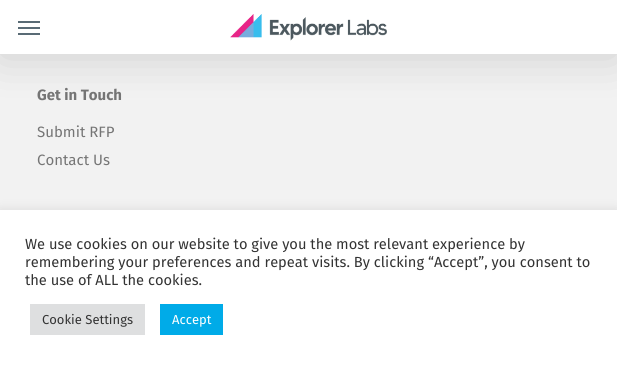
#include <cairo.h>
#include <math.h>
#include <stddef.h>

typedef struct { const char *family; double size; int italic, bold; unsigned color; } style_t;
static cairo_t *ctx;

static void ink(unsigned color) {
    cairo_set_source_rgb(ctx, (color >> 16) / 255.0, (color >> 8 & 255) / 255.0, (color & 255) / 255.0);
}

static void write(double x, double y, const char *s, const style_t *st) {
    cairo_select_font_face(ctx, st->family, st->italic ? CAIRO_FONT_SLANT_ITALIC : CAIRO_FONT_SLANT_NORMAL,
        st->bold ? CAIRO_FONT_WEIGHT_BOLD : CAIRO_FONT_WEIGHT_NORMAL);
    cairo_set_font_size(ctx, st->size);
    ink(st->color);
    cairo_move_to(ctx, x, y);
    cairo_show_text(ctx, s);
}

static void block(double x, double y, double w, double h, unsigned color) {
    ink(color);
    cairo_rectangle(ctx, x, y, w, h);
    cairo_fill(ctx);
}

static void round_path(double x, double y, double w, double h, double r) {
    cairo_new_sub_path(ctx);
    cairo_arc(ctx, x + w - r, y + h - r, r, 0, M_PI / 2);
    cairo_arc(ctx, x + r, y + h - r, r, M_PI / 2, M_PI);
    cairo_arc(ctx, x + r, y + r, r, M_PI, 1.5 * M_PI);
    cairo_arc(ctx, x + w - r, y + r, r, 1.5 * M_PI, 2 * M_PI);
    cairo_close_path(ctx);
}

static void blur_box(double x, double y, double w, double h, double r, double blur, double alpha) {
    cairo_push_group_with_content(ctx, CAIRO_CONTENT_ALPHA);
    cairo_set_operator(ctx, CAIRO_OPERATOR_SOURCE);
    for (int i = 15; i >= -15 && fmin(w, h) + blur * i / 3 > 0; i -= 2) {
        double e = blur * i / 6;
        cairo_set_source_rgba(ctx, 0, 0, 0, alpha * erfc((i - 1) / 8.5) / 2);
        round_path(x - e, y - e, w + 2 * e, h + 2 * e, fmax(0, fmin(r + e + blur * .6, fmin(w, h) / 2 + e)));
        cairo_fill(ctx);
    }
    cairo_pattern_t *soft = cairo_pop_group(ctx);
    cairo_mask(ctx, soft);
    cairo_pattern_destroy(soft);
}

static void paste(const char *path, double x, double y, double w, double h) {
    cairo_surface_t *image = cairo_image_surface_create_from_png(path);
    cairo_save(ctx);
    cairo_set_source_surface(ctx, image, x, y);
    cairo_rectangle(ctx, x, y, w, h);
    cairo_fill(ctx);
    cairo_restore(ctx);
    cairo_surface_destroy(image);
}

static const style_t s1 = {"Fira Sans", 15, 0, 1, 0x757575};
static const style_t s2 = {"Fira Sans", 15, 0, 0, 0x757575};
static const style_t s3 = {"Fira Sans", 14.65, 0, 0, 0x333333};
static const style_t s4 = {"Fira Sans", 13, 0, 0, 0x333333};
static const style_t s5 = {"Fira Sans", 13, 0, 0, 0xffffff};

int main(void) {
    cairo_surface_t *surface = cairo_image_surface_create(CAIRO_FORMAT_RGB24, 617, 365);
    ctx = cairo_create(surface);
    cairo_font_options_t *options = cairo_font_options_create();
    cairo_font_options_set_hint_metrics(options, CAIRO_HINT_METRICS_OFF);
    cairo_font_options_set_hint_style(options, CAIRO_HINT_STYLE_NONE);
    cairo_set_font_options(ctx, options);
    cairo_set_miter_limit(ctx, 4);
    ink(0xf2f2f2);
    cairo_paint(ctx);
    ink(0x000000);
    blur_box(0, 3, 617, 54, 0, 22.5, 0.15);
    block(0, 0, 617, 54, 0xffffff);
    block(18, 21, 22, 2, 0x596b75);
    block(18, 33, 22, 2, 0x596b75);
    block(18, 27, 22, 2, 0x596b75);
    paste("pic1.png", 230, 14, 157, 27);
    write(37, 100, "Get in Touch", &s1);
    write(37, 137, "Submit RFP", &s2);
    write(37, 165, "Contact Us", &s2);
    ink(0xacabab);
    blur_box(0, 209, 617, 155, 0, 5, 0.3);
    block(0, 210, 617, 155, 0xffffff);
    write(25, 249, "We use cookies on our website to give you the most relevant experience by", &s3);
    write(25, 267, "remembering your preferences and repeat visits. By clicking “Accept”, you consent to", &s3);
    write(25, 285, "the use of ALL the cookies.", &s3);
    block(30, 304, 115, 31, 0xdedfe0);
    write(42, 324, "Cookie Settings", &s4);
    block(160, 304, 63, 31, 0x00abe8);
    write(172, 324, "Accept", &s5);
    cairo_surface_write_to_png(surface, "screenshot.png");
    cairo_font_options_destroy(options);
    cairo_destroy(ctx);
    cairo_surface_destroy(surface);
    return 0;
}
